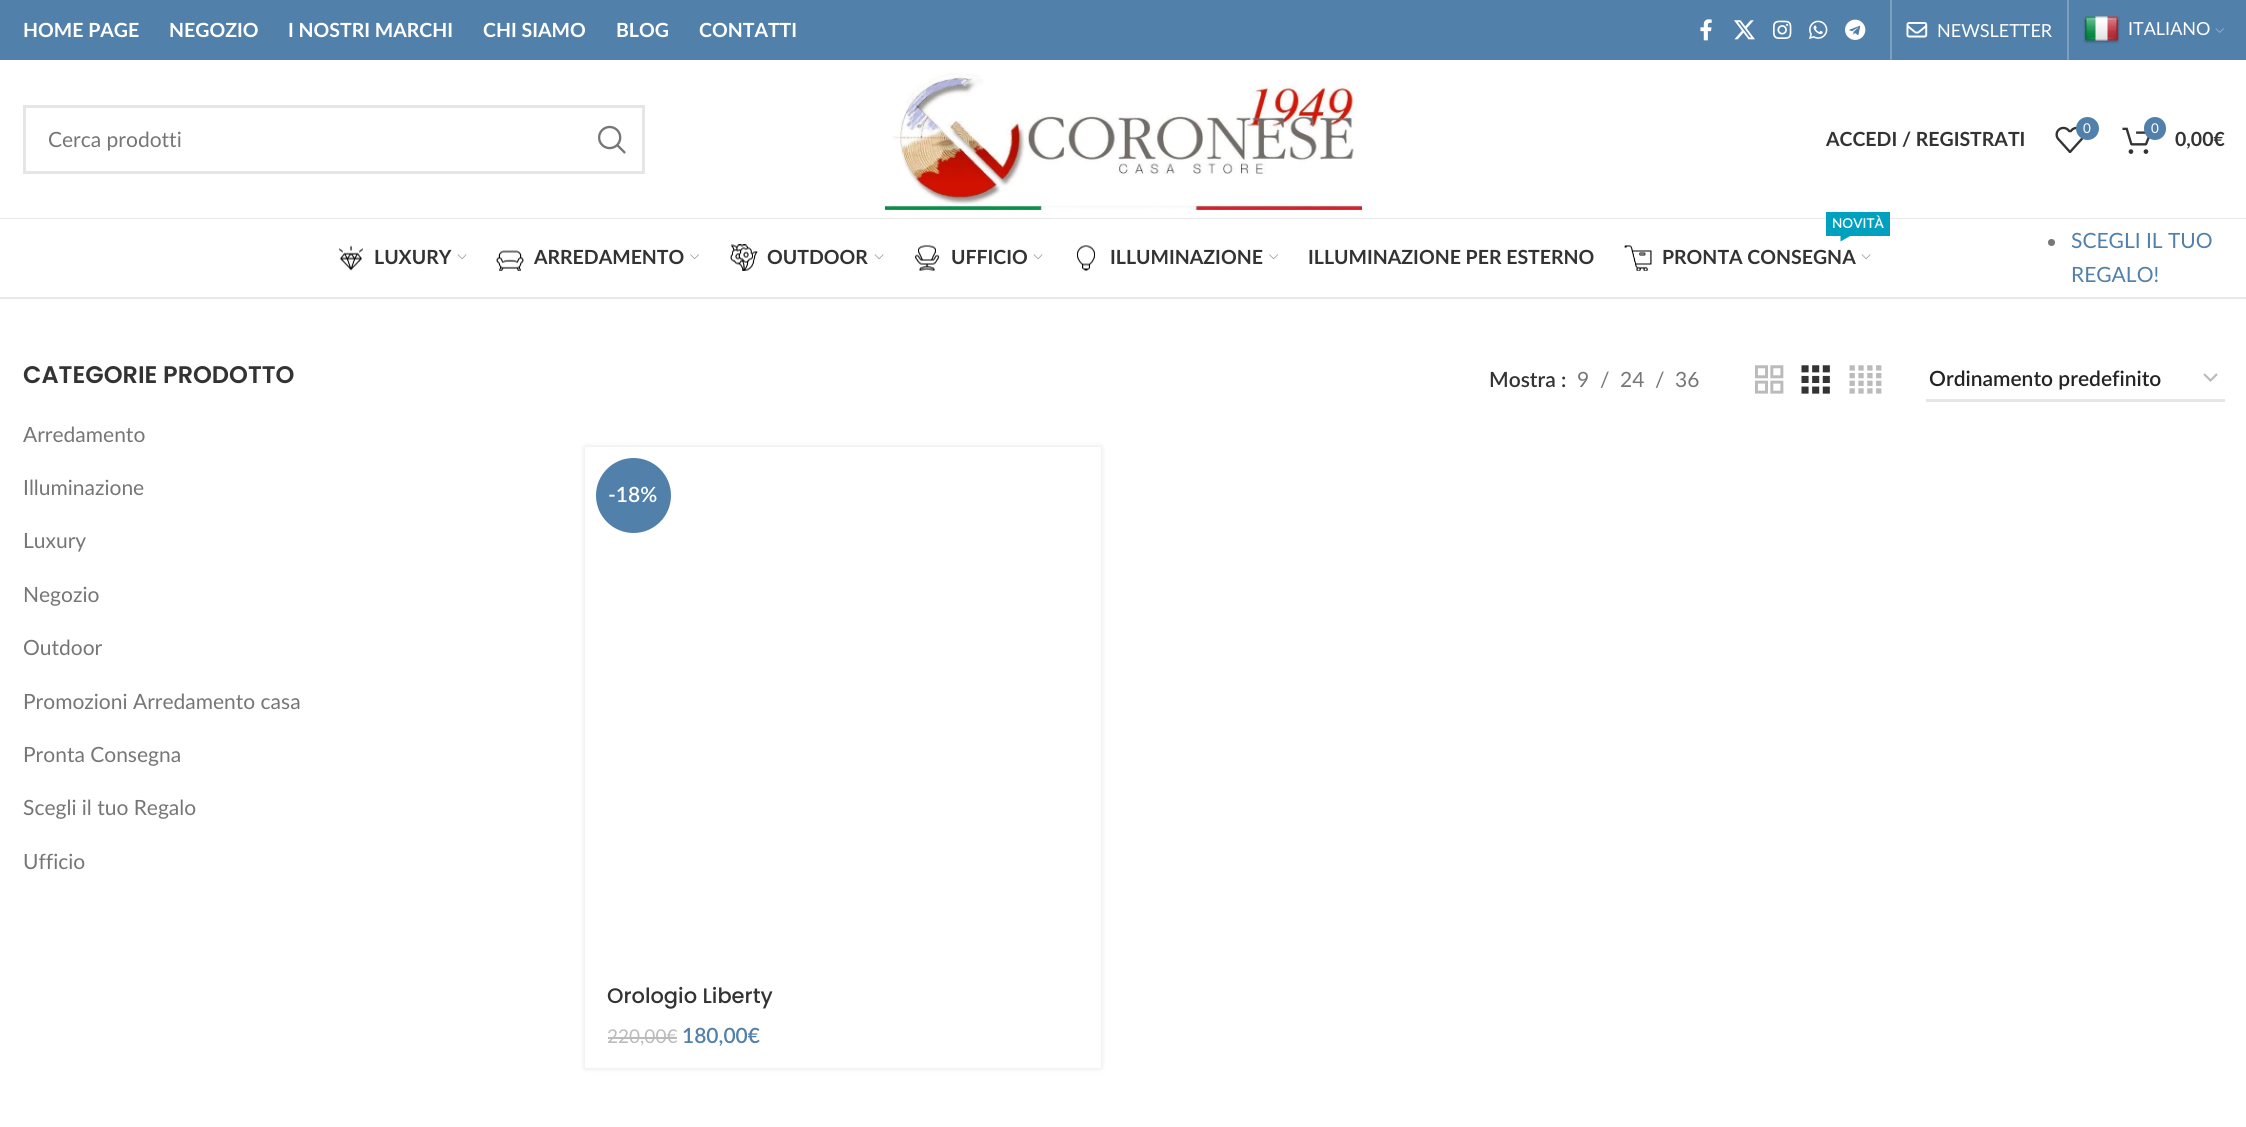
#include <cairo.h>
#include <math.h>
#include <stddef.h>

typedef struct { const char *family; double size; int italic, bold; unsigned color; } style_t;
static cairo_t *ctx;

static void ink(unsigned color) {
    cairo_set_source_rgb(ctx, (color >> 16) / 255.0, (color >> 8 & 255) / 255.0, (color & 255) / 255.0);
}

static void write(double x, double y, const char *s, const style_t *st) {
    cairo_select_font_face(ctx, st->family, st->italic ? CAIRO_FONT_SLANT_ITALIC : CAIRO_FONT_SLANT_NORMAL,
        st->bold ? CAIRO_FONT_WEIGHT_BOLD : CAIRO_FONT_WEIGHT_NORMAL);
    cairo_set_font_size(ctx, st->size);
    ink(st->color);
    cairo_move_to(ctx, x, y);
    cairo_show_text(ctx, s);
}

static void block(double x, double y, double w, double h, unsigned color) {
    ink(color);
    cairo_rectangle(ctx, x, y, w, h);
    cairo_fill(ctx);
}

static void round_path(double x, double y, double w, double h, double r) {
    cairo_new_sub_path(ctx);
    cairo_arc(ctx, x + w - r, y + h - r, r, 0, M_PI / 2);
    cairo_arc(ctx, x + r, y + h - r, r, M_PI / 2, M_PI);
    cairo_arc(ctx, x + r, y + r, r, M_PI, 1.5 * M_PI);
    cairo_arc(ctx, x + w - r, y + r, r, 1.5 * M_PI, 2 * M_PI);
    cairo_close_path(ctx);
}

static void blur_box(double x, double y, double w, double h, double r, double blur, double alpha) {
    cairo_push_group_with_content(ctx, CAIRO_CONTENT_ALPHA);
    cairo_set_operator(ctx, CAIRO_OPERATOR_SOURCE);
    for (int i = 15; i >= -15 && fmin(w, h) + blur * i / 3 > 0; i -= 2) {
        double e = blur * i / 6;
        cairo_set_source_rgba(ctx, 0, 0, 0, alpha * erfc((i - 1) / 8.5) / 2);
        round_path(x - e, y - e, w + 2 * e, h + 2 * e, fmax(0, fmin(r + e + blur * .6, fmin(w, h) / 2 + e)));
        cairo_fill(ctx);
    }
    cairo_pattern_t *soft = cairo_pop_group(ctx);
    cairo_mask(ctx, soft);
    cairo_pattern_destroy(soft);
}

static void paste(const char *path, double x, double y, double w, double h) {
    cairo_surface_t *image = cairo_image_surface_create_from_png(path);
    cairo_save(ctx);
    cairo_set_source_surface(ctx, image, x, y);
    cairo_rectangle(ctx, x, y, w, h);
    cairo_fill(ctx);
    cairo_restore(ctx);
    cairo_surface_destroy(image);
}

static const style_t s1 = {"Lato", 19.5, 0, 1, 0xffffff};
static const style_t s2 = {"Lato", 18, 0, 0, 0xffffff};
static const style_t s3 = {"Lato", 21, 0, 0, 0x767676};
static const style_t s4 = {"Lato", 19.5, 0, 1, 0x333333};
static const style_t s5 = {"Lato", 13.5, 0, 0, 0xffffff};
static const style_t s6 = {"Lato SemiBold", 13.5, 0, 0, 0xffffff};
static const style_t s7 = {"Lato", 21, 0, 0, 0x5180aa};
static const style_t s8 = {"Poppins SemiBold", 24, 0, 0, 0x333333};
static const style_t s9 = {"Lato SemiBold", 21, 0, 0, 0x333333};
static const style_t s10 = {"Lato SemiBold", 21, 0, 0, 0x242424};
static const style_t s11 = {"Lato SemiBold", 21, 0, 0, 0xffffff};
static const style_t s12 = {"Poppins Medium", 21, 0, 0, 0x333333};
static const style_t s13 = {"Lato", 19, 0, 0, 0xbbbbbb};
static const style_t s14 = {"Lato SemiBold", 21, 0, 0, 0x5180aa};

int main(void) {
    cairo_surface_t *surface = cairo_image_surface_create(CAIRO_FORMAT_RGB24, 2246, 1127);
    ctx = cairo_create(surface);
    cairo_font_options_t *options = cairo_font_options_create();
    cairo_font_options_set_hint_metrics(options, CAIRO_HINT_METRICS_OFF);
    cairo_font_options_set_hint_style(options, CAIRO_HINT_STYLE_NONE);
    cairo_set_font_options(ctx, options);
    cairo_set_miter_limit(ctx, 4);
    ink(0xffffff);
    cairo_paint(ctx);
    block(0, 0, 2246, 60, 0x5180aa);
    write(23, 37, "HOME PAGE", &s1);
    write(169, 37, "NEGOZIO", &s1);
    write(288, 37, "I NOSTRI MARCHI", &s1);
    write(483, 37, "CHI SIAMO", &s1);
    write(616, 37, "BLOG", &s1);
    write(699, 37, "CONTATTI", &s1);
    paste("pic1.png", 1700, 19, 12, 22);
    paste("pic2.png", 1734, 20, 21, 20);
    paste("pic3.png", 1773, 20, 19, 19);
    paste("pic4.png", 1809, 20, 19, 19);
    paste("pic5.png", 1845, 19, 21, 21);
    block(1890, 0, 2, 60, 0x7da0bf);
    paste("pic6.png", 1906, 22, 22, 16);
    write(1937, 37, "NEWSLETTER", &s2);
    block(2067, 0, 2, 60, 0x7da0bf);
    paste("pic7.png", 2083, 16, 37, 28);
    write(2128, 35, "ITALIANO", &s2);
    paste("pic8.png", 2215, 28, 9, 5);
    block(0, 218, 2246, 1, 0xe8e8e8);
    cairo_rectangle(ctx, 24.5, 106.5, 619, 66);
    ink(0xe6e6e6);
    cairo_set_line_width(ctx, 3);
    cairo_stroke(ctx);
    write(48, 147, "Cerca prodotti", &s3);
    paste("pic9.png", 597, 125, 29, 29);
    paste("pic10.png", 885, 72, 477, 138);
    write(1826, 146, "ACCEDI / REGISTRATI", &s4);
    paste("pic11.png", 2055, 126, 29, 27);
    ink(0x5180aa);
    cairo_arc(ctx, 2087.5, 128.5, 11.5, 0, 2 * M_PI);
    cairo_fill(ctx);
    write(2083, 133, "0", &s5);
    paste("pic12.png", 2122, 127, 28, 27);
    ink(0x5180aa);
    round_path(2144, 117, 22, 23, 11);
    cairo_fill(ctx);
    write(2151, 133, "0", &s5);
    write(2175, 146, "0,00€", &s4);
    block(0, 297, 2246, 2, 0xe8e8e8);
    paste("pic13.png", 339, 245, 24, 26);
    write(374, 264, "LUXURY", &s4);
    paste("pic14.png", 457, 254, 10, 6);
    paste("pic15.png", 496, 250, 28, 21);
    write(534, 264, "ARREDAMENTO", &s4);
    paste("pic16.png", 690, 254, 9, 6);
    paste("pic17.png", 730, 244, 28, 27);
    write(767, 264, "OUTDOOR", &s4);
    paste("pic14.png", 874, 254, 10, 6);
    paste("pic18.png", 915, 245, 25, 26);
    write(951, 264, "UFFICIO", &s4);
    paste("pic14.png", 1033, 254, 10, 6);
    paste("pic19.png", 1077, 245, 18, 26);
    write(1110, 264, "ILLUMINAZIONE", &s4);
    paste("pic16.png", 1269, 254, 9, 6);
    write(1308, 264, "ILLUMINAZIONE PER ESTERNO", &s4);
    block(1826, 212, 64, 24, 0x00a1be);
    write(1832, 228, "NOVITÀ", &s6);
    ink(0x00a1be);
    cairo_new_path(ctx);
    cairo_move_to(ctx, 1840.5, 235.5);
    cairo_line_to(ctx, 1851, 235.5);
    cairo_line_to(ctx, 1840.5, 241.5);
    cairo_close_path(ctx);
    cairo_fill(ctx);
    paste("pic20.png", 1624, 245, 28, 26);
    write(1662, 264, "PRONTA CONSEGNA", &s4);
    paste("pic14.png", 1861, 254, 10, 6);
    ink(0x777777);
    cairo_arc(ctx, 2051.5, 242.5, 3.5, 0, 2 * M_PI);
    cairo_fill(ctx);
    write(2071, 248, "SCEGLI IL TUO", &s7);
    write(2071, 282, "REGALO!", &s7);
    write(23, 383, "CATEGORIE PRODOTTO", &s8);
    write(23, 442, "Arredamento", &s3);
    write(23, 495, "Illuminazione", &s3);
    write(23, 548, "Luxury", &s3);
    write(23, 602, "Negozio", &s3);
    write(23, 655, "Outdoor", &s3);
    write(23, 709, "Promozioni Arredamento casa", &s3);
    write(23, 762, "Pronta Consegna", &s3);
    write(23, 815, "Scegli il tuo Regalo", &s3);
    write(23, 869, "Ufficio", &s3);
    write(1489, 387, "Mostra :", &s9);
    write(1577, 387, "9", &s3);
    write(1600, 387, "/", &s3);
    write(1620, 387, "24", &s3);
    write(1655, 387, "/", &s3);
    write(1675, 387, "36", &s3);
    paste("pic21.png", 1755, 365, 29, 29);
    paste("pic22.png", 1801, 365, 29, 29);
    paste("pic23.png", 1849, 365, 33, 29);
    cairo_new_path(ctx);
    cairo_move_to(ctx, 2204, 374);
    cairo_line_to(ctx, 2210.5, 380.5);
    cairo_line_to(ctx, 2217, 374);
    ink(0xbbbbbb);
    cairo_set_line_width(ctx, 2.2);
    cairo_stroke(ctx);
    block(1926, 399, 299, 3, 0xe6e6e6);
    write(1929, 386, "Ordinamento predefinito", &s10);
    cairo_save(ctx);
    cairo_set_fill_rule(ctx, CAIRO_FILL_RULE_EVEN_ODD);
    cairo_new_path(ctx);
    cairo_move_to(ctx, 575, 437);
    cairo_line_to(ctx, 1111, 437);
    cairo_line_to(ctx, 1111, 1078);
    cairo_line_to(ctx, 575, 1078);
    cairo_close_path(ctx);
    cairo_move_to(ctx, 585, 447);
    cairo_line_to(ctx, 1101, 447);
    cairo_line_to(ctx, 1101, 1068);
    cairo_line_to(ctx, 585, 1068);
    cairo_close_path(ctx);
    cairo_clip(ctx);
    ink(0x000000);
    blur_box(585, 447, 516, 621, 0, 3, 0.12);
    cairo_restore(ctx);
    ink(0x5180aa);
    cairo_arc(ctx, 633.5, 495.5, 37.5, 0, 2 * M_PI);
    cairo_fill(ctx);
    write(608, 502, "-18%", &s11);
    write(607, 1003, "Orologio Liberty", &s12);
    write(607, 1043, "220,00€", &s13);
    block(608, 1037, 69, 2, 0xbbbbbb);
    write(682, 1043, "180,00€", &s14);
    cairo_surface_write_to_png(surface, "screenshot.png");
    cairo_font_options_destroy(options);
    cairo_destroy(ctx);
    cairo_surface_destroy(surface);
    return 0;
}
